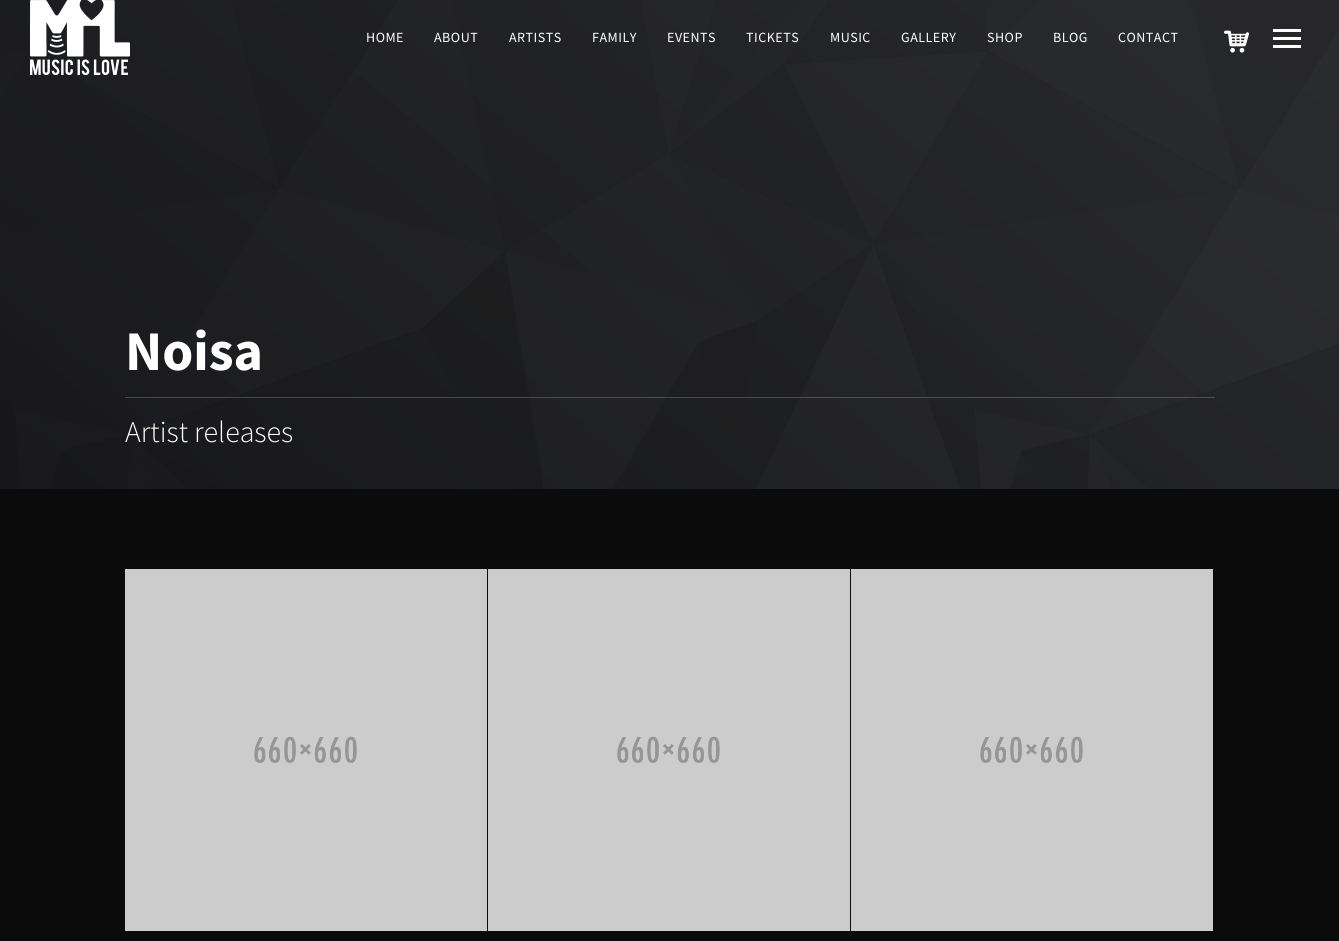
#include <cairo.h>
#include <math.h>
#include <stddef.h>

typedef struct { const char *family; double size; int italic, bold; unsigned color; } style_t;
static cairo_t *ctx;

static void ink(unsigned color) {
    cairo_set_source_rgb(ctx, (color >> 16) / 255.0, (color >> 8 & 255) / 255.0, (color & 255) / 255.0);
}

static void write(double x, double y, const char *s, const style_t *st) {
    cairo_select_font_face(ctx, st->family, st->italic ? CAIRO_FONT_SLANT_ITALIC : CAIRO_FONT_SLANT_NORMAL,
        st->bold ? CAIRO_FONT_WEIGHT_BOLD : CAIRO_FONT_WEIGHT_NORMAL);
    cairo_set_font_size(ctx, st->size);
    ink(st->color);
    cairo_move_to(ctx, x, y);
    cairo_show_text(ctx, s);
}

static void write_spaced(double x, double y, const char *s, double letter, double word) {
    cairo_move_to(ctx, x, y);
    while (*s) {
        char ch[5] = {0};
        int n = 0;
        do ch[n++] = *s++; while ((*s & 0xC0) == 0x80);
        cairo_show_text(ctx, ch);
        cairo_rel_move_to(ctx, letter + word * (*ch == ' '), 0);
    }
}

static void block(double x, double y, double w, double h, unsigned color) {
    ink(color);
    cairo_rectangle(ctx, x, y, w, h);
    cairo_fill(ctx);
}

static void paste(const char *path, double x, double y, double w, double h) {
    cairo_surface_t *image = cairo_image_surface_create_from_png(path);
    cairo_save(ctx);
    cairo_set_source_surface(ctx, image, x, y);
    cairo_rectangle(ctx, x, y, w, h);
    cairo_fill(ctx);
    cairo_restore(ctx);
    cairo_surface_destroy(image);
}

static const style_t s1 = {"Source Sans Pro", 56, 0, 1, 0xffffff};
static const style_t s2 = {"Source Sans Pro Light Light", 30, 0, 0, 0xffffff};

int main(void) {
    cairo_surface_t *surface = cairo_image_surface_create(CAIRO_FORMAT_RGB24, 1339, 941);
    ctx = cairo_create(surface);
    cairo_font_options_t *options = cairo_font_options_create();
    cairo_font_options_set_hint_metrics(options, CAIRO_HINT_METRICS_OFF);
    cairo_font_options_set_hint_style(options, CAIRO_HINT_STYLE_NONE);
    cairo_set_font_options(ctx, options);
    cairo_set_miter_limit(ctx, 4);
    ink(0x0b0b0c);
    cairo_paint(ctx);
    paste("pic3.png", 0, 0, 1339, 489);
    paste("pic1.png", 30, 0, 100, 75);
    cairo_select_font_face(ctx, "Source Sans Pro", CAIRO_FONT_SLANT_NORMAL, CAIRO_FONT_WEIGHT_NORMAL);
    cairo_set_font_size(ctx, 14);
    ink(0xffffff);
    write_spaced(366, 42, "HOME", 0.5, 0);
    write_spaced(434, 42, "ABOUT", 0.5, 0);
    write_spaced(509, 42, "ARTISTS", 0.5, 0);
    write_spaced(592, 42, "FAMILY", 0.5, 0);
    write_spaced(667, 42, "EVENTS", 0.5, 0);
    write_spaced(746, 42, "TICKETS", 0.5, 0);
    write_spaced(830, 42, "MUSIC", 0.5, 0);
    write_spaced(901, 42, "GALLERY", 0.5, 0);
    write_spaced(987, 42, "SHOP", 0.5, 0);
    write_spaced(1053, 42, "BLOG", 0.5, 0);
    write_spaced(1118, 42, "CONTACT", 0.5, 0);
    paste("pic2.png", 1224, 30, 25, 23);
    block(1273, 37, 28, 3, 0xffffff);
    block(1273, 29, 28, 3, 0xffffff);
    block(1273, 45, 28, 3, 0xffffff);
    write(125, 370, "Noisa", &s1);
    cairo_set_source_rgba(ctx, 1, 1, 1, 0.2);
    cairo_rectangle(ctx, 125, 397, 1090, 1);
    cairo_fill(ctx);
    write(125, 442, "Artist releases", &s2);
    paste("pic4.png", 125, 569, 362, 362);
    paste("pic4.png", 488, 569, 362, 362);
    paste("pic4.png", 851, 569, 362, 362);
    cairo_surface_write_to_png(surface, "screenshot.png");
    cairo_font_options_destroy(options);
    cairo_destroy(ctx);
    cairo_surface_destroy(surface);
    return 0;
}
